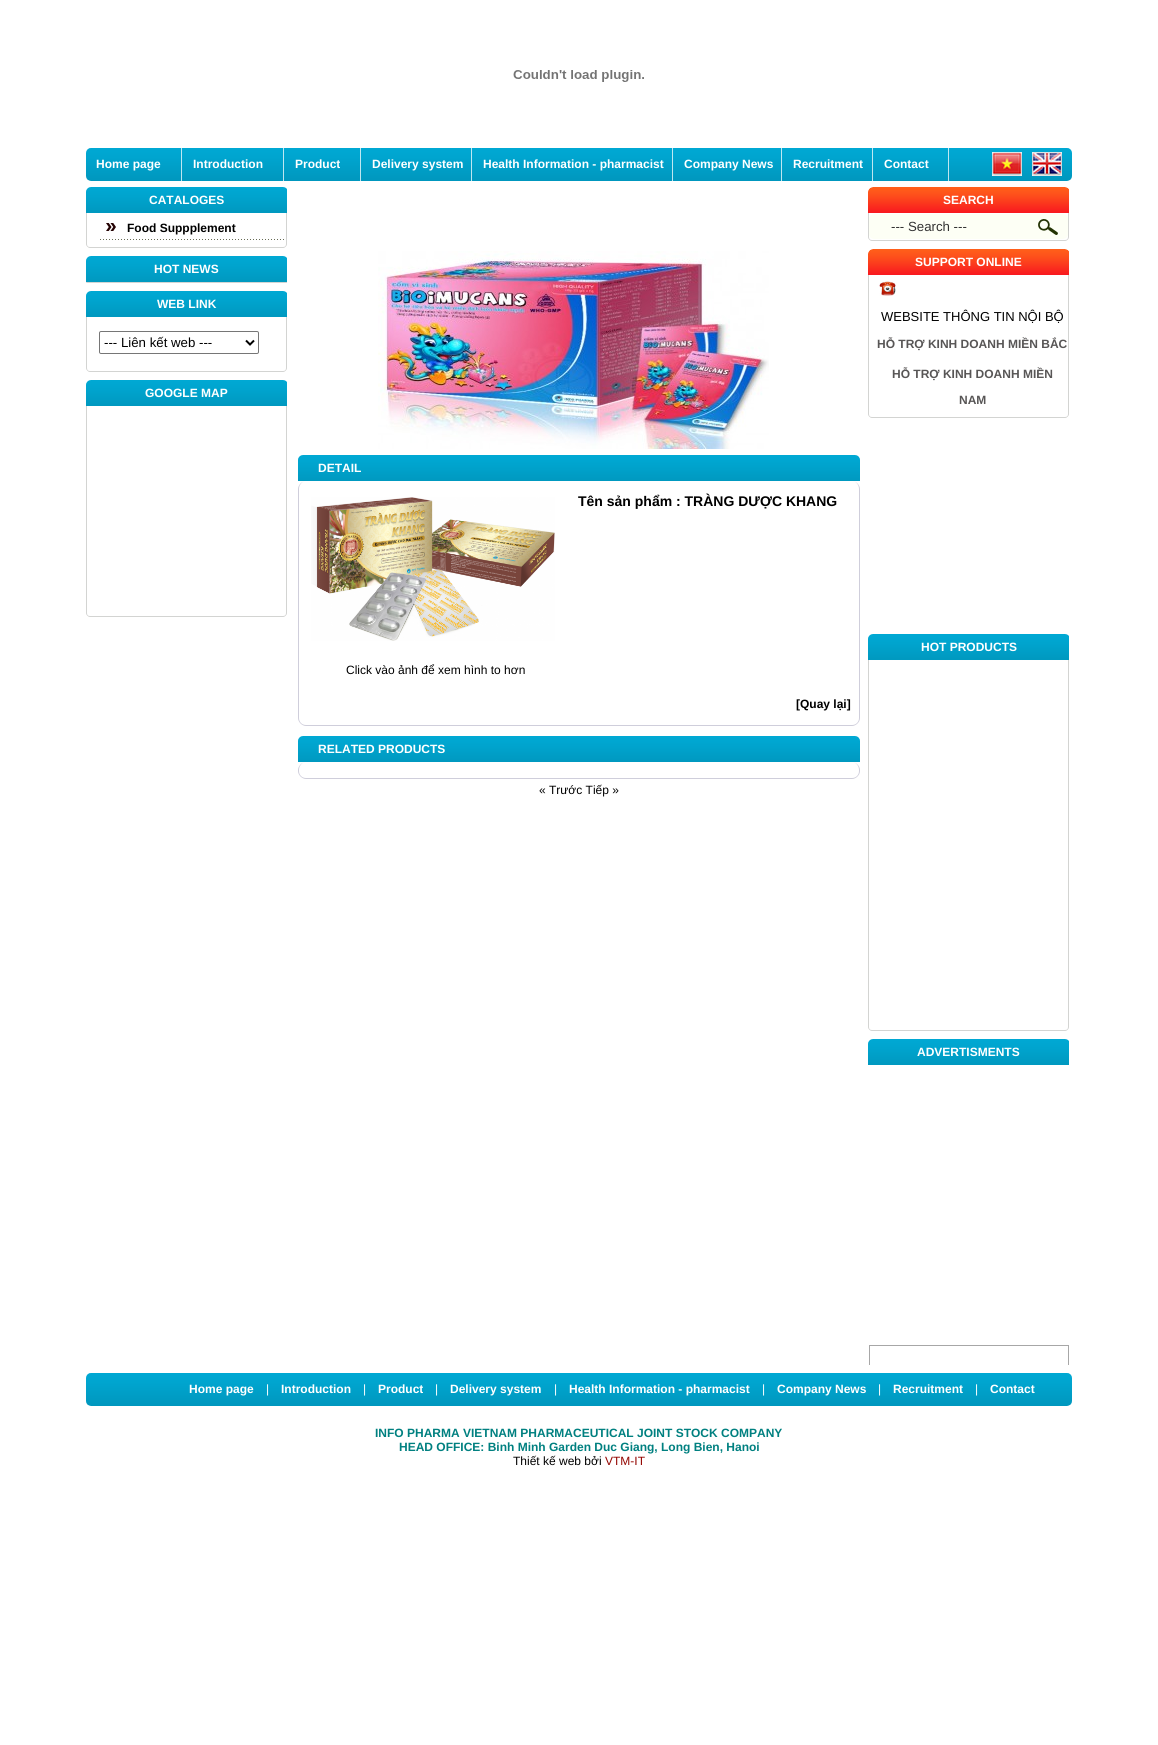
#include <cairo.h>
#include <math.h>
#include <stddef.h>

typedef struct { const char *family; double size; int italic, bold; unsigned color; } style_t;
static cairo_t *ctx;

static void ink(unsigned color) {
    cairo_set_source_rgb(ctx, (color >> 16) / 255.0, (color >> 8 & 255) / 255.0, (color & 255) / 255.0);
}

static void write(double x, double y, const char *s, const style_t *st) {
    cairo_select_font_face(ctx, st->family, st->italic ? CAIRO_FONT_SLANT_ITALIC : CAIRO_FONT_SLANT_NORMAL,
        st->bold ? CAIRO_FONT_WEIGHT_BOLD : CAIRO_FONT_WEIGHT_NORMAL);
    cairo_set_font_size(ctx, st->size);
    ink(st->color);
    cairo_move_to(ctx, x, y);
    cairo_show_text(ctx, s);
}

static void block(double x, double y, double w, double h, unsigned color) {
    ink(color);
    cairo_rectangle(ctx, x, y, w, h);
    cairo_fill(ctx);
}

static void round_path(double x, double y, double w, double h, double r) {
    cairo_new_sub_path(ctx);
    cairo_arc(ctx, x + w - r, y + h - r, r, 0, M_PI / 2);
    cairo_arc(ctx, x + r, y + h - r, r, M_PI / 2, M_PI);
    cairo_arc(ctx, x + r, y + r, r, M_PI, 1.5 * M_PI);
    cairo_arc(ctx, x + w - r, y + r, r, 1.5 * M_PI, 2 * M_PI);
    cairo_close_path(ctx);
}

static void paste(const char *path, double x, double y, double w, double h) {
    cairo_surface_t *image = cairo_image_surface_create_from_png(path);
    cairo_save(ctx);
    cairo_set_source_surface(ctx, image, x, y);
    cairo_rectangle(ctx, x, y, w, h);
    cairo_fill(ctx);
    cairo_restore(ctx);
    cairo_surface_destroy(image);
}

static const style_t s1 = {"Liberation Sans", 12, 0, 1, 0xffffff};
static const style_t s2 = {"Liberation Sans", 12, 0, 1, 0x000000};
static const style_t s3 = {"Liberation Sans", 13.25, 0, 0, 0x000000};
static const style_t s4 = {"Liberation Sans", 14, 0, 1, 0x000000};
static const style_t s5 = {"Liberation Sans", 12, 0, 0, 0x000000};
static const style_t s6 = {"Liberation Sans", 13.25, 0, 0, 0x333333};
static const style_t s7 = {"Liberation Sans", 13, 0, 0, 0x000000};
static const style_t s8 = {"Liberation Sans", 12, 0, 1, 0x585656};
static const style_t s9 = {"Liberation Sans", 12, 0, 0, 0xffffff};
static const style_t s10 = {"Liberation Sans", 12, 0, 1, 0x008080};
static const style_t s11 = {"Liberation Sans", 12, 0, 0, 0x930400};

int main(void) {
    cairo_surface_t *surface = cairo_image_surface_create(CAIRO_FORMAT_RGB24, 1158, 1745);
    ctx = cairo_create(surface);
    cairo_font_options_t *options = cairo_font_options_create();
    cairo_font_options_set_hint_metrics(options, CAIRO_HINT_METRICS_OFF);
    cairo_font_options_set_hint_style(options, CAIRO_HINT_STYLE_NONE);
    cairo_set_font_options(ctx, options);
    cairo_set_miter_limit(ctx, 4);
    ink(0xffffff);
    cairo_paint(ctx);
    paste("pic1.png", 513, 70, 131, 12);
    paste("pic2.png", 86, 148, 986, 33);
    paste("pic3.png", 181, 148, 1, 33);
    write(96, 168, "Home page", &s1);
    paste("pic3.png", 283, 148, 1, 33);
    write(193, 168, "Introduction", &s1);
    paste("pic3.png", 360, 148, 1, 33);
    write(295, 168, "Product", &s1);
    paste("pic3.png", 471, 148, 1, 33);
    write(372, 168, "Delivery system", &s1);
    paste("pic3.png", 672, 148, 1, 33);
    write(483, 168, "Health Information - pharmacist", &s1);
    paste("pic3.png", 781, 148, 1, 33);
    write(684, 168, "Company News", &s1);
    paste("pic3.png", 872, 148, 1, 33);
    write(793, 168, "Recruitment", &s1);
    paste("pic3.png", 948, 148, 1, 33);
    write(884, 168, "Contact", &s1);
    paste("pic4.png", 992, 152, 30, 24);
    paste("pic5.png", 1032, 152, 30, 24);
    paste("pic6.png", 86, 187, 201, 26);
    write(149, 204, "CATALOGES", &s1);
    ink(0xd3d4d2);
    cairo_set_fill_rule(ctx, CAIRO_FILL_RULE_EVEN_ODD);
    cairo_new_path(ctx);
    cairo_move_to(ctx, 86, 213);
    cairo_line_to(ctx, 287, 213);
    cairo_line_to(ctx, 287, 244);
    cairo_curve_to(ctx, 287, 246, 285, 248, 283, 248);
    cairo_line_to(ctx, 90, 248);
    cairo_curve_to(ctx, 88, 248, 86, 246, 86, 244);
    cairo_close_path(ctx);
    cairo_move_to(ctx, 87, 213);
    cairo_line_to(ctx, 286, 213);
    cairo_line_to(ctx, 286, 244);
    cairo_curve_to(ctx, 286, 246, 285, 247, 283, 247);
    cairo_line_to(ctx, 90, 247);
    cairo_curve_to(ctx, 88, 247, 87, 246, 87, 244);
    cairo_close_path(ctx);
    cairo_fill(ctx);
    paste("pic7.png", 100, 223, 184, 17);
    write(127, 232, "Food Suppplement", &s2);
    paste("pic6.png", 86, 256, 201, 26);
    write(154, 273, "HOT NEWS", &s1);
    block(87, 282, 200, 1, 0xd3d4d2);
    cairo_new_path(ctx);
    cairo_arc(ctx, 86.5, 282.5, 0.5, 0, 2 * M_PI);
    cairo_fill(ctx);
    paste("pic6.png", 86, 291, 201, 26);
    write(157, 308, "WEB LINK", &s1);
    ink(0xd3d4d2);
    cairo_new_path(ctx);
    cairo_move_to(ctx, 86, 317);
    cairo_line_to(ctx, 287, 317);
    cairo_line_to(ctx, 287, 368);
    cairo_curve_to(ctx, 287, 370, 285, 372, 283, 372);
    cairo_line_to(ctx, 90, 372);
    cairo_curve_to(ctx, 88, 372, 86, 370, 86, 368);
    cairo_close_path(ctx);
    cairo_move_to(ctx, 87, 317);
    cairo_line_to(ctx, 286, 317);
    cairo_line_to(ctx, 286, 368);
    cairo_curve_to(ctx, 286, 370, 285, 371, 283, 371);
    cairo_line_to(ctx, 90, 371);
    cairo_curve_to(ctx, 88, 371, 87, 370, 87, 368);
    cairo_close_path(ctx);
    cairo_fill(ctx);
    round_path(99.5, 331.5, 159, 22, 1.5);
    ink(0x767676);
    cairo_set_line_width(ctx, 1);
    cairo_stroke(ctx);
    cairo_new_path(ctx);
    cairo_move_to(ctx, 246, 340.5);
    cairo_line_to(ctx, 250, 344.5);
    cairo_line_to(ctx, 254, 340.5);
    ink(0x000000);
    cairo_set_line_width(ctx, 2);
    cairo_stroke(ctx);
    write(104, 347, "--- Liên kết web ---", &s3);
    paste("pic6.png", 86, 380, 201, 26);
    write(145, 397, "GOOGLE MAP", &s1);
    ink(0xd3d4d2);
    cairo_new_path(ctx);
    cairo_move_to(ctx, 86, 406);
    cairo_line_to(ctx, 287, 406);
    cairo_line_to(ctx, 287, 613);
    cairo_curve_to(ctx, 287, 615, 285, 617, 283, 617);
    cairo_line_to(ctx, 90, 617);
    cairo_curve_to(ctx, 88, 617, 86, 615, 86, 613);
    cairo_close_path(ctx);
    cairo_move_to(ctx, 87, 406);
    cairo_line_to(ctx, 286, 406);
    cairo_line_to(ctx, 286, 613);
    cairo_curve_to(ctx, 286, 615, 285, 616, 283, 616);
    cairo_line_to(ctx, 90, 616);
    cairo_curve_to(ctx, 88, 616, 87, 615, 87, 613);
    cairo_close_path(ctx);
    cairo_fill(ctx);
    paste("pic8.png", 378, 251, 391, 198);
    paste("pic9.png", 298, 455, 562, 26);
    write(318, 472, "DETAIL", &s1);
    ink(0xcfcedb);
    cairo_new_path(ctx);
    cairo_move_to(ctx, 306, 481);
    cairo_line_to(ctx, 852, 481);
    cairo_curve_to(ctx, 856, 481, 860, 485, 860, 489);
    cairo_line_to(ctx, 860, 718);
    cairo_curve_to(ctx, 860, 722, 856, 726, 852, 726);
    cairo_line_to(ctx, 306, 726);
    cairo_curve_to(ctx, 302, 726, 298, 722, 298, 718);
    cairo_line_to(ctx, 298, 489);
    cairo_curve_to(ctx, 298, 485, 302, 481, 306, 481);
    cairo_close_path(ctx);
    cairo_move_to(ctx, 306, 481);
    cairo_line_to(ctx, 852, 481);
    cairo_curve_to(ctx, 856, 481, 859, 485, 859, 489);
    cairo_line_to(ctx, 859, 718);
    cairo_curve_to(ctx, 859, 722, 856, 725, 852, 725);
    cairo_line_to(ctx, 306, 725);
    cairo_curve_to(ctx, 302, 725, 299, 722, 299, 718);
    cairo_line_to(ctx, 299, 489);
    cairo_curve_to(ctx, 299, 485, 302, 481, 306, 481);
    cairo_close_path(ctx);
    cairo_fill(ctx);
    write(578, 506, "Tên sản phẩm : TRÀNG DƯỢC KHANG", &s4);
    paste("pic10.png", 311, 497, 244, 144);
    write(346, 674, "Click vào ảnh để xem hình to hơn", &s5);
    write(796, 708, "[Quay lại]", &s2);
    paste("pic9.png", 298, 736, 562, 26);
    write(318, 753, "RELATED PRODUCTS", &s1);
    ink(0xcfcedb);
    cairo_new_path(ctx);
    cairo_move_to(ctx, 306, 762);
    cairo_line_to(ctx, 852, 762);
    cairo_curve_to(ctx, 856, 762, 860, 766, 860, 770);
    cairo_line_to(ctx, 860, 771);
    cairo_curve_to(ctx, 860, 775, 856, 779, 852, 779);
    cairo_line_to(ctx, 306, 779);
    cairo_curve_to(ctx, 302, 779, 298, 775, 298, 771);
    cairo_line_to(ctx, 298, 770);
    cairo_curve_to(ctx, 298, 766, 302, 762, 306, 762);
    cairo_close_path(ctx);
    cairo_move_to(ctx, 306, 762);
    cairo_line_to(ctx, 852, 762);
    cairo_curve_to(ctx, 856, 762, 859, 766, 859, 770);
    cairo_line_to(ctx, 859, 771);
    cairo_curve_to(ctx, 859, 775, 856, 778, 852, 778);
    cairo_line_to(ctx, 306, 778);
    cairo_curve_to(ctx, 302, 778, 299, 775, 299, 771);
    cairo_line_to(ctx, 299, 770);
    cairo_curve_to(ctx, 299, 766, 302, 762, 306, 762);
    cairo_close_path(ctx);
    cairo_fill(ctx);
    write(539, 794, "« Trước Tiếp »", &s5);
    paste("pic11.png", 868, 187, 201, 26);
    write(943, 204, "SEARCH", &s1);
    ink(0xd3d4d2);
    cairo_new_path(ctx);
    cairo_move_to(ctx, 868, 213);
    cairo_line_to(ctx, 1069, 213);
    cairo_line_to(ctx, 1069, 237);
    cairo_curve_to(ctx, 1069, 239, 1067, 241, 1065, 241);
    cairo_line_to(ctx, 872, 241);
    cairo_curve_to(ctx, 870, 241, 868, 239, 868, 237);
    cairo_close_path(ctx);
    cairo_move_to(ctx, 869, 213);
    cairo_line_to(ctx, 1068, 213);
    cairo_line_to(ctx, 1068, 237);
    cairo_curve_to(ctx, 1068, 239, 1067, 240, 1065, 240);
    cairo_line_to(ctx, 872, 240);
    cairo_curve_to(ctx, 870, 240, 869, 239, 869, 237);
    cairo_close_path(ctx);
    cairo_fill(ctx);
    paste("pic12.png", 869, 214, 168, 25);
    write(891, 231, "--- Search ---", &s6);
    paste("pic13.png", 1037, 214, 31, 25);
    paste("pic11.png", 868, 249, 201, 26);
    write(915, 266, "SUPPORT ONLINE", &s1);
    ink(0xd3d4d2);
    cairo_new_path(ctx);
    cairo_move_to(ctx, 868, 275);
    cairo_line_to(ctx, 1069, 275);
    cairo_line_to(ctx, 1069, 414);
    cairo_curve_to(ctx, 1069, 416, 1067, 418, 1065, 418);
    cairo_line_to(ctx, 872, 418);
    cairo_curve_to(ctx, 870, 418, 868, 416, 868, 414);
    cairo_close_path(ctx);
    cairo_move_to(ctx, 869, 275);
    cairo_line_to(ctx, 1068, 275);
    cairo_line_to(ctx, 1068, 414);
    cairo_curve_to(ctx, 1068, 416, 1067, 417, 1065, 417);
    cairo_line_to(ctx, 872, 417);
    cairo_curve_to(ctx, 870, 417, 869, 416, 869, 414);
    cairo_close_path(ctx);
    cairo_fill(ctx);
    paste("pic14.png", 879, 281, 18, 15);
    write(881, 321, "WEBSITE THÔNG TIN NỘI BỘ", &s7);
    write(877, 348, "HỖ TRỢ KINH DOANH MIỀN BẮC", &s8);
    write(892, 378, "HỖ TRỢ KINH DOANH MIỀN", &s8);
    write(959, 404, "NAM", &s8);
    paste("pic6.png", 868, 634, 201, 26);
    write(921, 651, "HOT PRODUCTS", &s1);
    ink(0xd3d4d2);
    cairo_new_path(ctx);
    cairo_move_to(ctx, 868, 660);
    cairo_line_to(ctx, 1069, 660);
    cairo_line_to(ctx, 1069, 1027);
    cairo_curve_to(ctx, 1069, 1029, 1067, 1031, 1065, 1031);
    cairo_line_to(ctx, 872, 1031);
    cairo_curve_to(ctx, 870, 1031, 868, 1029, 868, 1027);
    cairo_close_path(ctx);
    cairo_move_to(ctx, 869, 660);
    cairo_line_to(ctx, 1068, 660);
    cairo_line_to(ctx, 1068, 1027);
    cairo_curve_to(ctx, 1068, 1029, 1067, 1030, 1065, 1030);
    cairo_line_to(ctx, 872, 1030);
    cairo_curve_to(ctx, 870, 1030, 869, 1029, 869, 1027);
    cairo_close_path(ctx);
    cairo_fill(ctx);
    paste("pic6.png", 868, 1039, 201, 26);
    write(917, 1056, "ADVERTISMENTS", &s1);
    cairo_save(ctx);
    cairo_set_fill_rule(ctx, CAIRO_FILL_RULE_WINDING);
    cairo_rectangle(ctx, 868, 1065, 201, 300);
    cairo_clip(ctx);
    cairo_rectangle(ctx, 869.5, 1345.5, 199, 199);
    ink(0xa7a7a7);
    cairo_set_line_width(ctx, 1);
    cairo_stroke(ctx);
    cairo_restore(ctx);
    paste("pic2.png", 86, 1373, 986, 33);
    write(189, 1393, "Home page", &s1);
    write(266, 1393, "|", &s9);
    write(281, 1393, "Introduction", &s1);
    write(363, 1393, "|", &s9);
    write(378, 1393, "Product", &s1);
    write(435, 1393, "|", &s9);
    write(450, 1393, "Delivery system", &s1);
    write(554, 1393, "|", &s9);
    write(569, 1393, "Health Information - pharmacist", &s1);
    write(762, 1393, "|", &s9);
    write(777, 1393, "Company News", &s1);
    write(878, 1393, "|", &s9);
    write(893, 1393, "Recruitment", &s1);
    write(975, 1393, "|", &s9);
    write(990, 1393, "Contact", &s1);
    write(375, 1437, "INFO PHARMA VIETNAM PHARMACEUTICAL JOINT STOCK COMPANY", &s10);
    write(399, 1451, "HEAD OFFICE: Binh Minh Garden Duc Giang, Long Bien, Hanoi", &s10);
    write(513, 1465, "Thiết kế web bởi", &s5);
    write(605, 1465, "VTM-IT", &s11);
    cairo_surface_write_to_png(surface, "screenshot.png");
    cairo_font_options_destroy(options);
    cairo_destroy(ctx);
    cairo_surface_destroy(surface);
    return 0;
}
